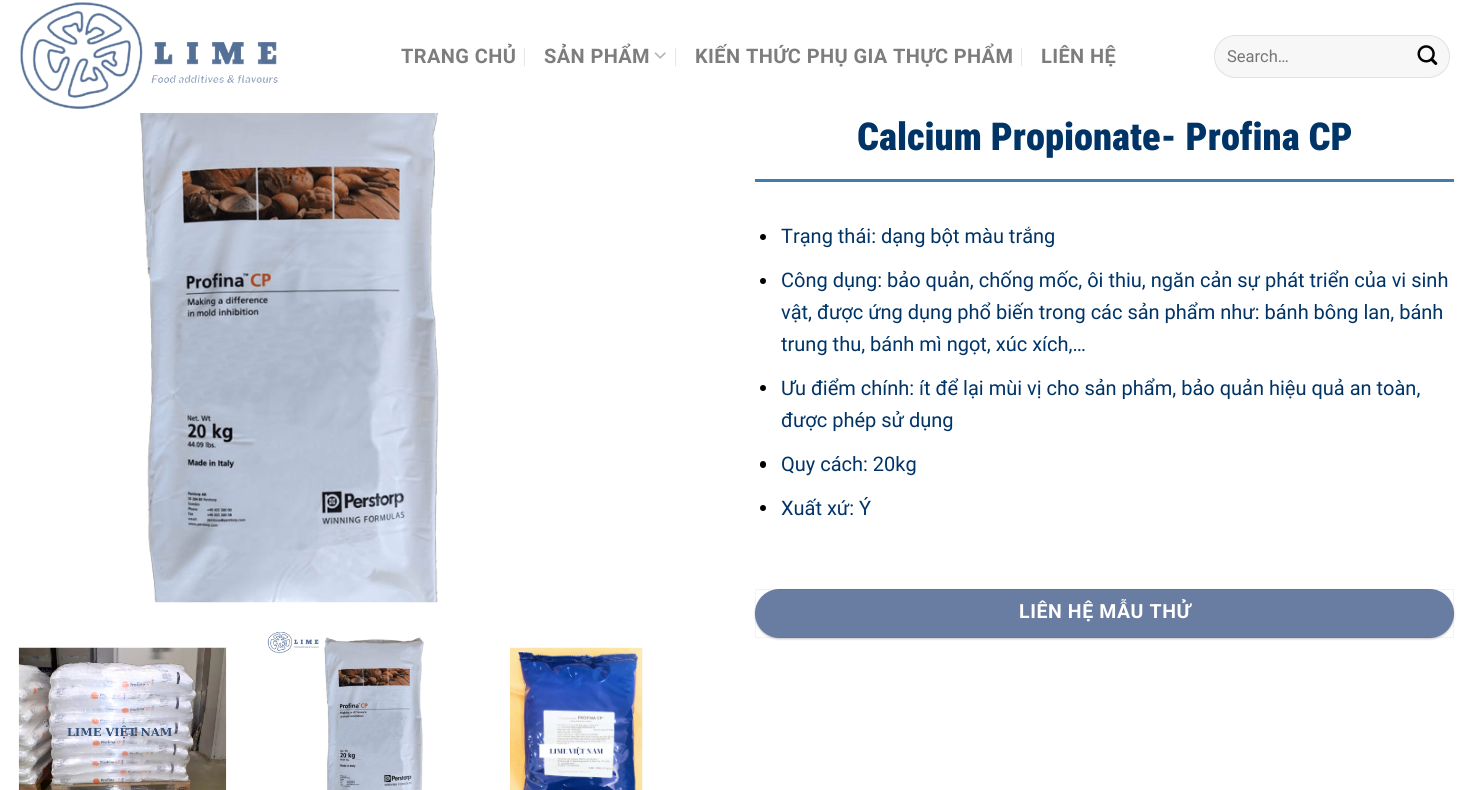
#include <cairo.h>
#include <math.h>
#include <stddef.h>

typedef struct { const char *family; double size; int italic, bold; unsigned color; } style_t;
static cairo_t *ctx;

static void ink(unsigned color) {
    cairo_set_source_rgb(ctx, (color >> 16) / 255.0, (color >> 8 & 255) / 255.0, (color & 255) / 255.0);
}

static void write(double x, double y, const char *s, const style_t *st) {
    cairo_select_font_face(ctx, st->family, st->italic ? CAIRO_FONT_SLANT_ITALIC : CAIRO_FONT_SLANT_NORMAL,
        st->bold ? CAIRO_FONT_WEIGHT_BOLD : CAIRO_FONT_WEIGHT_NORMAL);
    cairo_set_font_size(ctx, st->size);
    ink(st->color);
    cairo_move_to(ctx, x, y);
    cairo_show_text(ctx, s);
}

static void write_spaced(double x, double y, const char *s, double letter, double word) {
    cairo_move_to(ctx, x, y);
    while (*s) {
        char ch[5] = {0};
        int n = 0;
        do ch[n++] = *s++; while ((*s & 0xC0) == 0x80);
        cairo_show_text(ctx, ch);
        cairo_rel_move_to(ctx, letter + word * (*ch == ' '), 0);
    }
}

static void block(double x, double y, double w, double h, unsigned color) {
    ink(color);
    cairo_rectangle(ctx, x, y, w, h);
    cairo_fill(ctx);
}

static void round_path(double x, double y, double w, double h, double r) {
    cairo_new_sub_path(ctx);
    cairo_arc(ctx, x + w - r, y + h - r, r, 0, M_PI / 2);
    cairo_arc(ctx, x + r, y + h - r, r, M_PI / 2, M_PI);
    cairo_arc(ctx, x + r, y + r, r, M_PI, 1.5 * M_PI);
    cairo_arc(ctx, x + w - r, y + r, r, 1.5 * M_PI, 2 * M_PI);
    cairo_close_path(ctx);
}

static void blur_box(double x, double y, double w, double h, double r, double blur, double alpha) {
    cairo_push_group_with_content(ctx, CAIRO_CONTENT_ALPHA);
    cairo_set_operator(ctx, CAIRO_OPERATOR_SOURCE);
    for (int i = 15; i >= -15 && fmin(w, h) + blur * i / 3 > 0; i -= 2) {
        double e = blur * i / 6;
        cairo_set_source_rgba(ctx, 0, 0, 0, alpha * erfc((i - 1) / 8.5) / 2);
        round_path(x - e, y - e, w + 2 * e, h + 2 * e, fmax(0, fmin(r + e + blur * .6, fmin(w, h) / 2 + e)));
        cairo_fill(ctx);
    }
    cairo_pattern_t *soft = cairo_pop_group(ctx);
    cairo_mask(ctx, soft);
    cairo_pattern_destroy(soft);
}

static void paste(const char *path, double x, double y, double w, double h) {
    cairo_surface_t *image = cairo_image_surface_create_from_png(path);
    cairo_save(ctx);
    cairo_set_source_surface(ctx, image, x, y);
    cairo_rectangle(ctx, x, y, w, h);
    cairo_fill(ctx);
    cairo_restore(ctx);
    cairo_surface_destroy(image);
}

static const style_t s1 = {"Roboto", 16.5, 0, 0, 0x757575};
static const style_t s2 = {"Roboto Condensed Black", 38.4, 0, 0, 0x003366};
static const style_t s3 = {"Roboto", 20, 0, 0, 0x003366};

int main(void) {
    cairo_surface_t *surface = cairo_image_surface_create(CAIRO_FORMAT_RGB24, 1472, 790);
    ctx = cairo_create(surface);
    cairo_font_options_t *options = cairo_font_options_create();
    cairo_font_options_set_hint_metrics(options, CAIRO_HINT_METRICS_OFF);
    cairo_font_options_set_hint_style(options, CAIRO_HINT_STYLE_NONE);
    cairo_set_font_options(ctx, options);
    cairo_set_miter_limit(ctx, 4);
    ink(0xffffff);
    cairo_paint(ctx);
    paste("pic1.png", 20, 2, 258, 108);
    cairo_select_font_face(ctx, "Roboto", CAIRO_FONT_SLANT_NORMAL, CAIRO_FONT_WEIGHT_BOLD);
    cairo_set_font_size(ctx, 20);
    ink(0x7d7d7d);
    write_spaced(401, 63, "TRANG CHỦ", 0.4, 0);
    block(524, 48, 1, 18, 0xe6e6e6);
    ink(0x7d7d7d);
    write_spaced(544, 63, "SẢN PHẨM", 0.4, 0);
    paste("pic2.png", 654, 52, 12, 7);
    block(675, 48, 1, 18, 0xe6e6e6);
    ink(0x7d7d7d);
    write_spaced(695, 63, "KIẾN THỨC PHỤ GIA THỰC PHẨM", 0.4, 0);
    block(1021, 48, 1, 18, 0xe6e6e6);
    ink(0x7d7d7d);
    write_spaced(1041, 63, "LIÊN HỆ", 0.4, 0);
    ink(0xf7f7f7);
    round_path(1214, 35, 236, 43, 21.5);
    cairo_fill(ctx);
    round_path(1214.5, 35.5, 235, 42, 21);
    cairo_set_source_rgba(ctx, 0, 0, 0, 0.09);
    cairo_set_line_width(ctx, 1);
    cairo_stroke(ctx);
    write(1227, 62, "Search…", &s1);
    paste("pic3.png", 1417, 45, 21, 20);
    paste("pic4.png", 140, 112, 299, 491);
    cairo_set_source_rgba(ctx, 1, 1, 1, 0.9);
    cairo_rectangle(ctx, 140, 112, 298, 1);
    cairo_fill(ctx);
    paste("pic5.png", 18, 647, 209, 143);
    paste("pic6.png", 267, 632, 157, 158);
    paste("pic7.png", 510, 647, 133, 143);
    write(857, 150, "Calcium Propionate- Profina CP", &s2);
    block(755, 179, 699, 3, 0x417cad);
    ink(0x000000);
    cairo_new_path(ctx);
    cairo_arc(ctx, 763, 237, 3, 0, 2 * M_PI);
    cairo_fill(ctx);
    write(781, 243, "Trạng thái: dạng bột màu trắng", &s3);
    ink(0x000000);
    cairo_new_path(ctx);
    cairo_arc(ctx, 763, 281, 3, 0, 2 * M_PI);
    cairo_fill(ctx);
    write(781, 287, "Công dụng: bảo quản, chống mốc, ôi thiu, ngăn cản sự phát triển của vi sinh", &s3);
    write(781, 319, "vật, được ứng dụng phổ biến trong các sản phẩm như: bánh bông lan, bánh", &s3);
    write(781, 351, "trung thu, bánh mì ngọt, xúc xích,…", &s3);
    ink(0x000000);
    cairo_new_path(ctx);
    cairo_arc(ctx, 763, 388, 3, 0, 2 * M_PI);
    cairo_fill(ctx);
    write(781, 395, "Ưu điểm chính: ít để lại mùi vị cho sản phẩm, bảo quản hiệu quả an toàn,", &s3);
    write(781, 427, "được phép sử dụng", &s3);
    ink(0x000000);
    round_path(760, 461, 6, 7, 3);
    cairo_fill(ctx);
    write(781, 471, "Quy cách: 20kg", &s3);
    ink(0x000000);
    cairo_new_path(ctx);
    cairo_arc(ctx, 763, 508, 3, 0, 2 * M_PI);
    cairo_fill(ctx);
    write(781, 515, "Xuất xứ: Ý", &s3);
    ink(0x000000);
    blur_box(755, 590, 699, 49, 24.5, 1, 0.24);
    ink(0x697da3);
    round_path(755, 589, 699, 49, 24.5);
    cairo_fill(ctx);
    cairo_rectangle(ctx, 755.5, 589.5, 698, 48);
    cairo_set_source_rgba(ctx, 0, 0, 0, 0.05);
    cairo_stroke(ctx);
    cairo_select_font_face(ctx, "Roboto", CAIRO_FONT_SLANT_NORMAL, CAIRO_FONT_WEIGHT_BOLD);
    cairo_set_font_size(ctx, 19.5);
    ink(0xffffff);
    write_spaced(1019, 618, "LIÊN HỆ MẪU THỬ", 0.6, 0);
    cairo_surface_write_to_png(surface, "screenshot.png");
    cairo_font_options_destroy(options);
    cairo_destroy(ctx);
    cairo_surface_destroy(surface);
    return 0;
}
